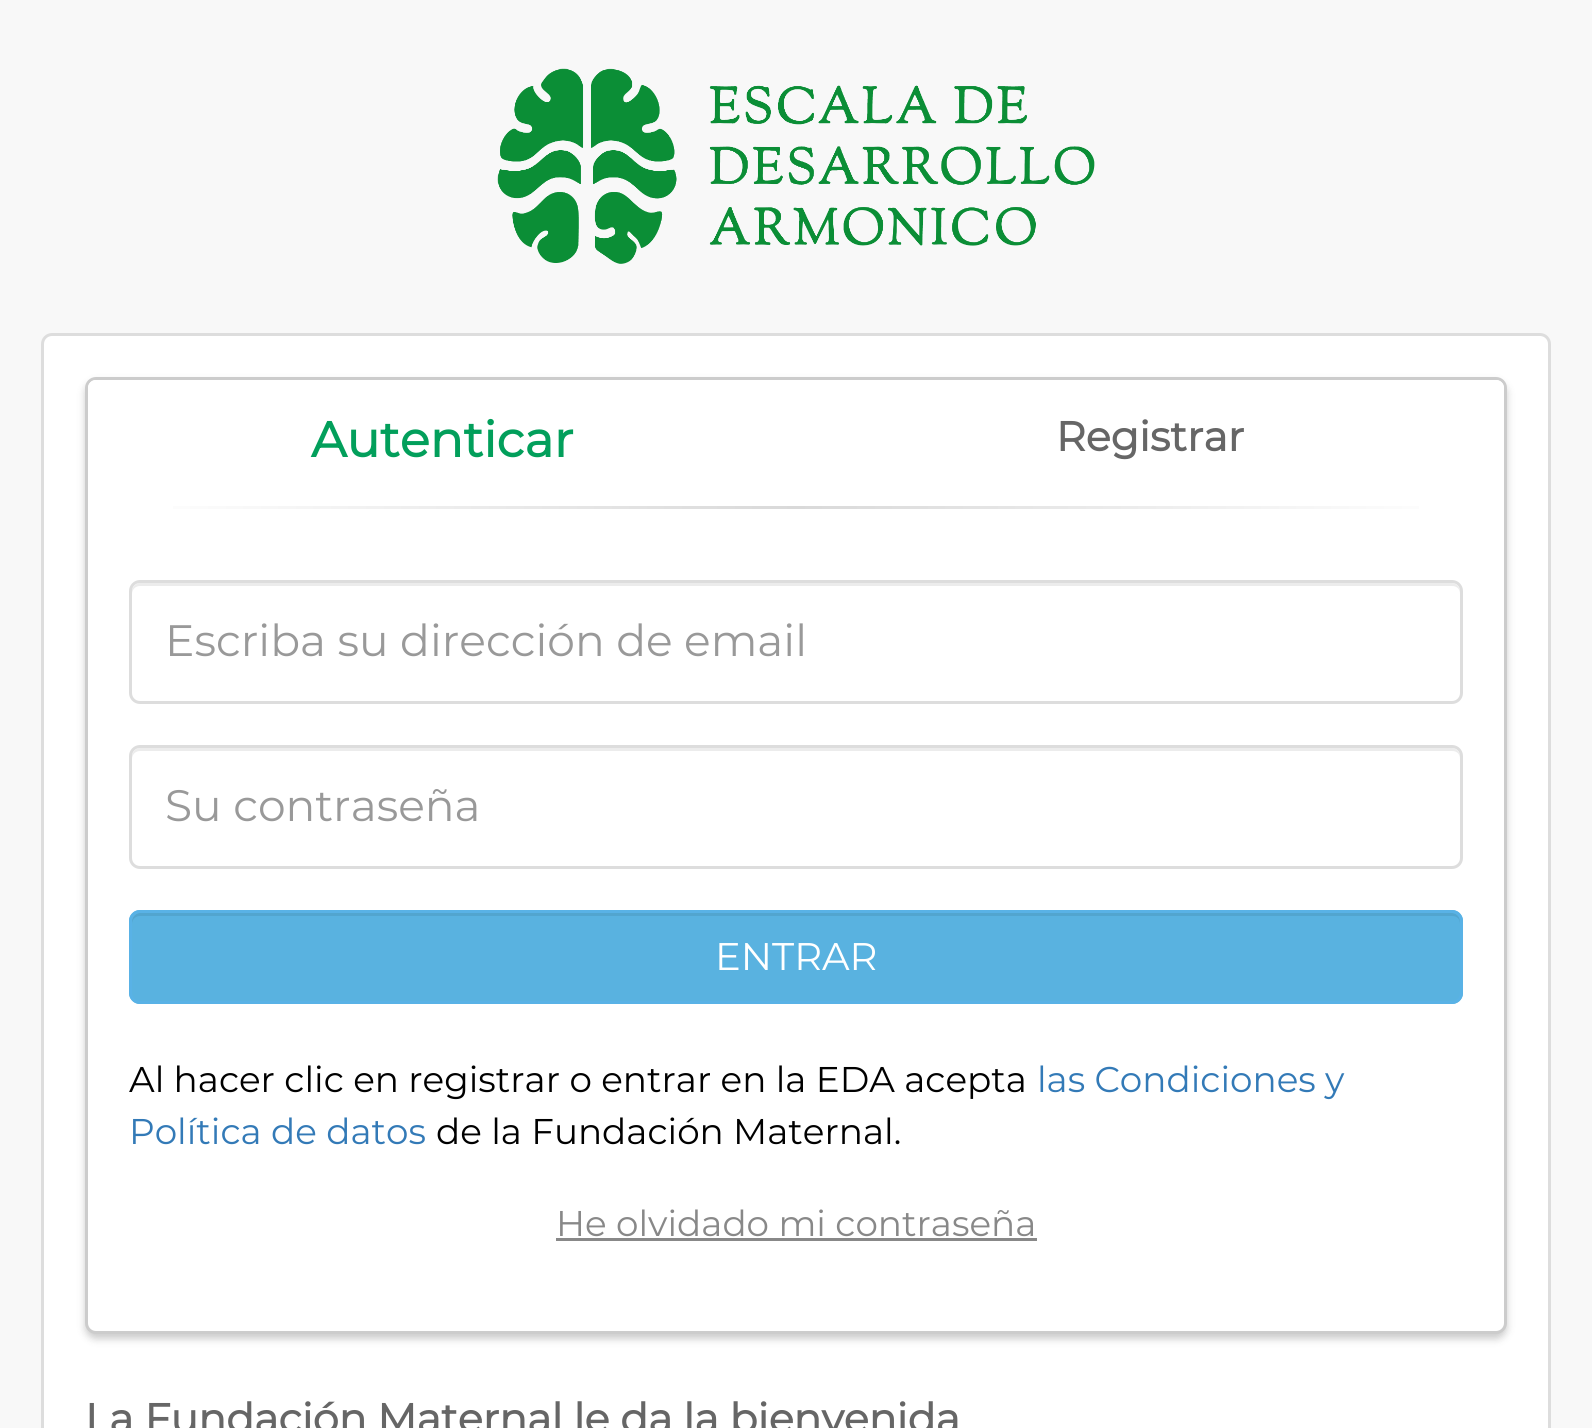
#include <cairo.h>
#include <math.h>
#include <stddef.h>

typedef struct { const char *family; double size; int italic, bold; unsigned color; } style_t;
static cairo_t *ctx;

static void ink(unsigned color) {
    cairo_set_source_rgb(ctx, (color >> 16) / 255.0, (color >> 8 & 255) / 255.0, (color & 255) / 255.0);
}

static void write(double x, double y, const char *s, const style_t *st) {
    cairo_select_font_face(ctx, st->family, st->italic ? CAIRO_FONT_SLANT_ITALIC : CAIRO_FONT_SLANT_NORMAL,
        st->bold ? CAIRO_FONT_WEIGHT_BOLD : CAIRO_FONT_WEIGHT_NORMAL);
    cairo_set_font_size(ctx, st->size);
    ink(st->color);
    cairo_move_to(ctx, x, y);
    cairo_show_text(ctx, s);
}

static void block(double x, double y, double w, double h, unsigned color) {
    ink(color);
    cairo_rectangle(ctx, x, y, w, h);
    cairo_fill(ctx);
}

static void round_path(double x, double y, double w, double h, double r) {
    cairo_new_sub_path(ctx);
    cairo_arc(ctx, x + w - r, y + h - r, r, 0, M_PI / 2);
    cairo_arc(ctx, x + r, y + h - r, r, M_PI / 2, M_PI);
    cairo_arc(ctx, x + r, y + r, r, M_PI, 1.5 * M_PI);
    cairo_arc(ctx, x + w - r, y + r, r, 1.5 * M_PI, 2 * M_PI);
    cairo_close_path(ctx);
}

static void blur_box(double x, double y, double w, double h, double r, double blur, double alpha) {
    cairo_push_group_with_content(ctx, CAIRO_CONTENT_ALPHA);
    cairo_set_operator(ctx, CAIRO_OPERATOR_SOURCE);
    for (int i = 15; i >= -15 && fmin(w, h) + blur * i / 3 > 0; i -= 2) {
        double e = blur * i / 6;
        cairo_set_source_rgba(ctx, 0, 0, 0, alpha * erfc((i - 1) / 8.5) / 2);
        round_path(x - e, y - e, w + 2 * e, h + 2 * e, fmax(0, fmin(r + e + blur * .6, fmin(w, h) / 2 + e)));
        cairo_fill(ctx);
    }
    cairo_pattern_t *soft = cairo_pop_group(ctx);
    cairo_mask(ctx, soft);
    cairo_pattern_destroy(soft);
}

static void paste(const char *path, double x, double y, double w, double h) {
    cairo_surface_t *image = cairo_image_surface_create_from_png(path);
    cairo_save(ctx);
    cairo_set_source_surface(ctx, image, x, y);
    cairo_rectangle(ctx, x, y, w, h);
    cairo_fill(ctx);
    cairo_restore(ctx);
    cairo_surface_destroy(image);
}

static const style_t s1 = {"Montserrat", 49.5, 0, 1, 0x029f5b};
static const style_t s2 = {"Montserrat", 41.25, 0, 1, 0x666666};
static const style_t s3 = {"Montserrat Thin", 44, 0, 0, 0x999999};
static const style_t s4 = {"Montserrat Thin", 38.5, 0, 0, 0xffffff};
static const style_t s5 = {"Montserrat Thin", 35.75, 0, 0, 0x000000};
static const style_t s6 = {"Montserrat Thin", 35.75, 0, 0, 0x337ab7};
static const style_t s7 = {"Montserrat Thin", 35.75, 0, 0, 0x888888};

int main(void) {
    cairo_surface_t *surface = cairo_image_surface_create(CAIRO_FORMAT_RGB24, 1592, 1428);
    ctx = cairo_create(surface);
    cairo_font_options_t *options = cairo_font_options_create();
    cairo_font_options_set_hint_metrics(options, CAIRO_HINT_METRICS_OFF);
    cairo_font_options_set_hint_style(options, CAIRO_HINT_STYLE_NONE);
    cairo_set_font_options(ctx, options);
    cairo_set_miter_limit(ctx, 4);
    cairo_pattern_t *gradient;
    ink(0xf8f8f8);
    cairo_paint(ctx);
    paste("pic1.png", 497, 68, 598, 196);
    ink(0xffffff);
    round_path(42.5, 334.5, 1507, 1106, 9.5);
    cairo_fill_preserve(ctx);
    ink(0xdddddd);
    cairo_set_line_width(ctx, 3);
    cairo_stroke(ctx);
    ink(0x000000);
    blur_box(85, 382, 1422, 957, 11, 4, 0.2);
    ink(0xffffff);
    round_path(86.5, 378.5, 1419, 954, 9.5);
    cairo_fill_preserve(ctx);
    ink(0xcccccc);
    cairo_stroke(ctx);
    ink(0xffffff);
    cairo_new_path(ctx);
    cairo_move_to(ctx, 96, 380);
    cairo_line_to(ctx, 1496, 380);
    cairo_curve_to(ctx, 1500.5, 380, 1504, 383.5, 1504, 388);
    cairo_line_to(ctx, 1504, 539);
    cairo_line_to(ctx, 88, 539);
    cairo_line_to(ctx, 88, 388);
    cairo_curve_to(ctx, 88, 383.5, 91.5, 380, 96, 380);
    cairo_close_path(ctx);
    cairo_fill(ctx);
    write(311, 457, "Autenticar", &s1);
    write(1056, 451, "Registrar", &s2);
    gradient = cairo_pattern_create_linear(129, 507, 1463, 507);
    cairo_pattern_add_color_stop_rgba(gradient, 0, 1, 1, 1, 1);
    cairo_pattern_add_color_stop_rgba(gradient, 0.5, 0.851, 0.851, 0.851, 1);
    cairo_pattern_add_color_stop_rgba(gradient, 1, 1, 1, 1, 1);
    cairo_set_source(ctx, gradient);
    cairo_pattern_destroy(gradient);
    cairo_rectangle(ctx, 173, 506, 1246, 3);
    cairo_fill(ctx);
    ink(0xececec);
    cairo_new_path(ctx);
    cairo_move_to(ctx, 140, 586);
    cairo_line_to(ctx, 1452, 586);
    cairo_curve_to(ctx, 1457, 586, 1460, 589, 1460, 594);
    cairo_line_to(ctx, 1460, 591);
    cairo_curve_to(ctx, 1460, 587, 1456, 583, 1452, 583);
    cairo_line_to(ctx, 140, 583);
    cairo_curve_to(ctx, 136, 583, 132, 587, 132, 591);
    cairo_line_to(ctx, 132, 594);
    cairo_curve_to(ctx, 132, 589, 136, 586, 140, 586);
    cairo_close_path(ctx);
    cairo_fill(ctx);
    round_path(130.5, 581.5, 1331, 121, 9.5);
    ink(0xdddddd);
    cairo_stroke(ctx);
    write(165, 656, "Escriba su dirección de email", &s3);
    ink(0xececec);
    cairo_new_path(ctx);
    cairo_move_to(ctx, 140, 751);
    cairo_line_to(ctx, 1452, 751);
    cairo_curve_to(ctx, 1457, 751, 1460, 754, 1460, 759);
    cairo_line_to(ctx, 1460, 756);
    cairo_curve_to(ctx, 1460, 752, 1456, 748, 1452, 748);
    cairo_line_to(ctx, 140, 748);
    cairo_curve_to(ctx, 136, 748, 132, 752, 132, 756);
    cairo_line_to(ctx, 132, 759);
    cairo_curve_to(ctx, 132, 754, 136, 751, 140, 751);
    cairo_close_path(ctx);
    cairo_fill(ctx);
    round_path(130.5, 746.5, 1331, 121, 9.5);
    ink(0xdddddd);
    cairo_stroke(ctx);
    write(165, 821, "Su contraseña", &s3);
    ink(0x59b2e0);
    round_path(129, 910, 1334, 94, 11);
    cairo_fill(ctx);
    ink(0x52a5cf);
    cairo_new_path(ctx);
    cairo_move_to(ctx, 140, 916);
    cairo_line_to(ctx, 1452, 916);
    cairo_curve_to(ctx, 1457, 916, 1460, 919, 1460, 924);
    cairo_line_to(ctx, 1460, 921);
    cairo_curve_to(ctx, 1460, 917, 1456, 913, 1452, 913);
    cairo_line_to(ctx, 140, 913);
    cairo_curve_to(ctx, 136, 913, 132, 917, 132, 921);
    cairo_line_to(ctx, 132, 924);
    cairo_curve_to(ctx, 132, 919, 136, 916, 140, 916);
    cairo_close_path(ctx);
    cairo_fill(ctx);
    round_path(130.5, 911.5, 1331, 91, 9.5);
    ink(0x59b2e6);
    cairo_stroke(ctx);
    write(715, 970, "ENTRAR", &s4);
    write(129, 1092, "Al hacer clic en registrar o entrar en la EDA acepta", &s5);
    write(1037, 1092, "las Condiciones y", &s6);
    write(129, 1144, "Política de datos", &s6);
    write(436, 1144, "de la Fundación Maternal.", &s5);
    write(556, 1236, "He olvidado mi contraseña", &s7);
    block(556, 1238, 481, 3, 0x888888);
    write(85, 1433, "La Fundación Maternal le da la bienvenida", &s2);
    cairo_surface_write_to_png(surface, "screenshot.png");
    cairo_font_options_destroy(options);
    cairo_destroy(ctx);
    cairo_surface_destroy(surface);
    return 0;
}
